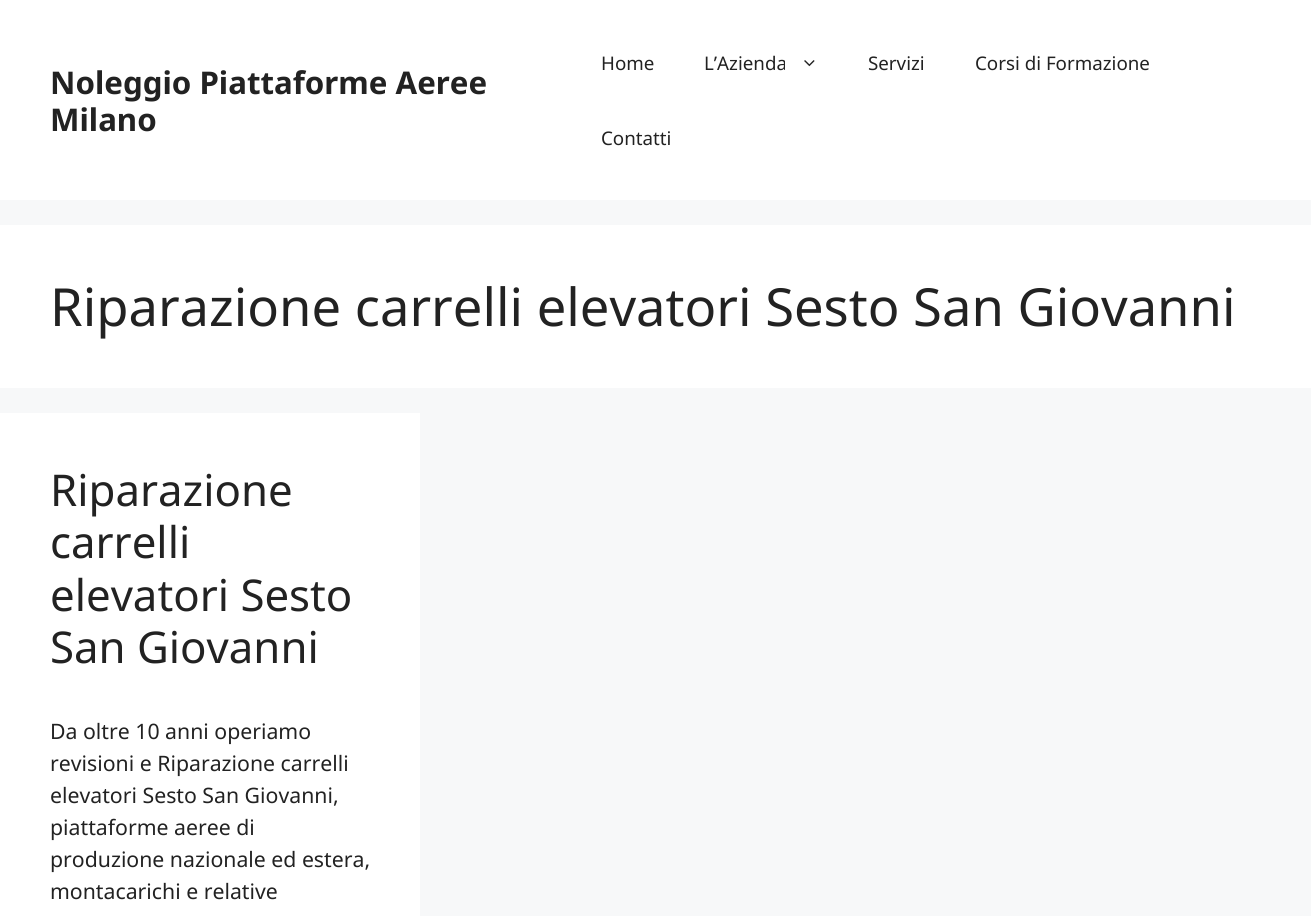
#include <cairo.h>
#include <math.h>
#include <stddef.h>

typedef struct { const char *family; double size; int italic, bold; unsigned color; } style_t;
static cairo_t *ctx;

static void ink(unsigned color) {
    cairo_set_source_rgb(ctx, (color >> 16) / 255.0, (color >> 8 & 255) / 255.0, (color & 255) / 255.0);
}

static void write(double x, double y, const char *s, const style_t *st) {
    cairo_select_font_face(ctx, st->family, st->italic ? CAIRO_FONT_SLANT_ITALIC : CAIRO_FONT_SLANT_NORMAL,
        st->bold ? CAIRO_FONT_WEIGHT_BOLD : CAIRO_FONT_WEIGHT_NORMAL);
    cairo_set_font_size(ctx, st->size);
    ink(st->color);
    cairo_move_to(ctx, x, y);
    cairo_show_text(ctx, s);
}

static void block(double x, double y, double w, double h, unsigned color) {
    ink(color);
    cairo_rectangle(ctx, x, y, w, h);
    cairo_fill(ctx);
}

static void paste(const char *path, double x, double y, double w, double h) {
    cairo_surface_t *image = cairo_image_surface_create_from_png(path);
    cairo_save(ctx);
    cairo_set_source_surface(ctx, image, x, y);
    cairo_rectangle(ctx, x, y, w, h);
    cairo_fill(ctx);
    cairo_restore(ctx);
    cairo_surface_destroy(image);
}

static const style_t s1 = {"Noto Sans", 31.25, 0, 1, 0x222222};
static const style_t s2 = {"Noto Sans", 18.75, 0, 0, 0x222222};
static const style_t s3 = {"Noto Sans", 52.5, 0, 0, 0x222222};
static const style_t s4 = {"Noto Sans", 43.75, 0, 0, 0x222222};
static const style_t s5 = {"Noto Sans", 21.25, 0, 0, 0x222222};

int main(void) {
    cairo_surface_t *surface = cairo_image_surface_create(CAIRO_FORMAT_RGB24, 1311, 916);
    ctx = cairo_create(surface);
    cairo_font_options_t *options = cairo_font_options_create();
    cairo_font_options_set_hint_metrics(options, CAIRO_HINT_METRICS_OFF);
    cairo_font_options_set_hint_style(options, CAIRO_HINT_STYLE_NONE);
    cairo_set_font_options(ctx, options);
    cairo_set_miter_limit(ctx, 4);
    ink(0xf7f8f9);
    cairo_paint(ctx);
    block(0, 0, 1311, 200, 0xffffff);
    write(50, 94, "Noleggio Piattaforme Aeree", &s1);
    write(50, 131, "Milano", &s1);
    write(601, 70, "Home", &s2);
    write(704, 70, "L’Azienda", &s2);
    paste("pic1.png", 804, 60, 11, 7);
    write(868, 70, "Servizi", &s2);
    write(975, 70, "Corsi di Formazione", &s2);
    write(601, 145, "Contatti", &s2);
    block(0, 225, 1311, 163, 0xffffff);
    write(50, 326, "Riparazione carrelli elevatori Sesto San Giovanni", &s3);
    block(0, 413, 420, 503, 0xffffff);
    write(50, 506, "Riparazione", &s4);
    write(50, 558, "carrelli", &s4);
    write(50, 611, "elevatori Sesto", &s4);
    write(50, 663, "San Giovanni", &s4);
    write(50, 739, "Da oltre 10 anni operiamo", &s5);
    write(50, 771, "revisioni e Riparazione carrelli", &s5);
    write(50, 803, "elevatori Sesto San Giovanni,", &s5);
    write(50, 835, "piattaforme aeree di", &s5);
    write(50, 867, "produzione nazionale ed estera,", &s5);
    write(50, 899, "montacarichi e relative", &s5);
    cairo_surface_write_to_png(surface, "screenshot.png");
    cairo_font_options_destroy(options);
    cairo_destroy(ctx);
    cairo_surface_destroy(surface);
    return 0;
}
